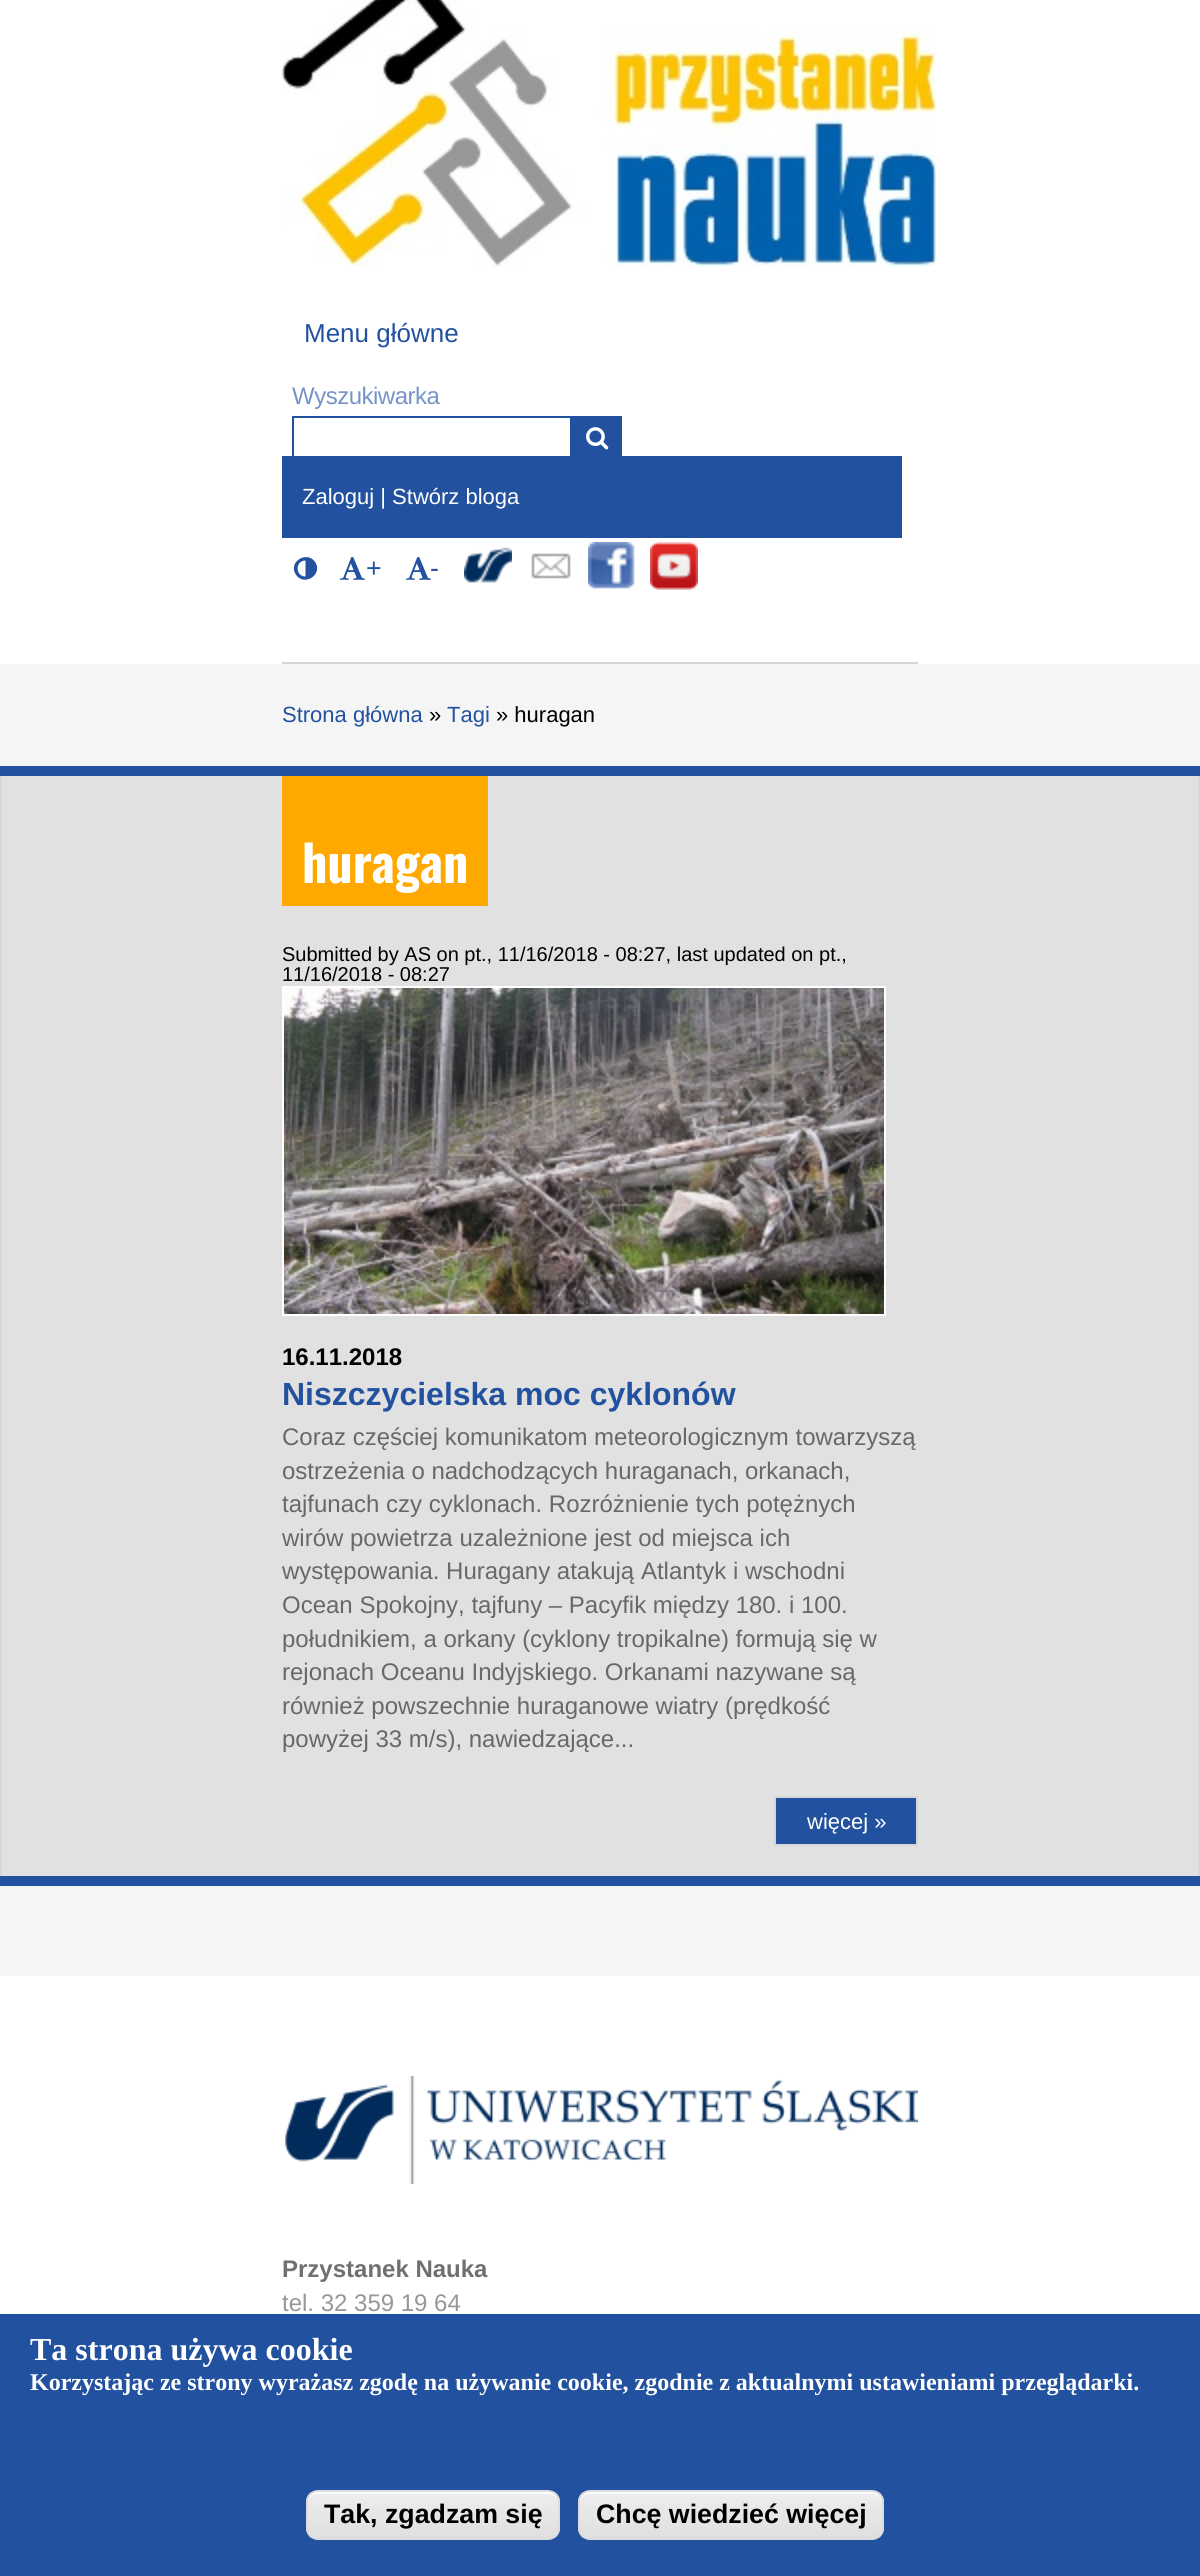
#include <cairo.h>
#include <math.h>
#include <stddef.h>

typedef struct { const char *family; double size; int italic, bold; unsigned color; } style_t;
static cairo_t *ctx;

static void ink(unsigned color) {
    cairo_set_source_rgb(ctx, (color >> 16) / 255.0, (color >> 8 & 255) / 255.0, (color & 255) / 255.0);
}

static void write(double x, double y, const char *s, const style_t *st) {
    cairo_select_font_face(ctx, st->family, st->italic ? CAIRO_FONT_SLANT_ITALIC : CAIRO_FONT_SLANT_NORMAL,
        st->bold ? CAIRO_FONT_WEIGHT_BOLD : CAIRO_FONT_WEIGHT_NORMAL);
    cairo_set_font_size(ctx, st->size);
    ink(st->color);
    cairo_move_to(ctx, x, y);
    cairo_show_text(ctx, s);
}

static void write_spaced(double x, double y, const char *s, double letter, double word) {
    cairo_move_to(ctx, x, y);
    while (*s) {
        char ch[5] = {0};
        int n = 0;
        do ch[n++] = *s++; while ((*s & 0xC0) == 0x80);
        cairo_show_text(ctx, ch);
        cairo_rel_move_to(ctx, letter + word * (*ch == ' '), 0);
    }
}

static void block(double x, double y, double w, double h, unsigned color) {
    ink(color);
    cairo_rectangle(ctx, x, y, w, h);
    cairo_fill(ctx);
}

static void round_path(double x, double y, double w, double h, double r) {
    cairo_new_sub_path(ctx);
    cairo_arc(ctx, x + w - r, y + h - r, r, 0, M_PI / 2);
    cairo_arc(ctx, x + r, y + h - r, r, M_PI / 2, M_PI);
    cairo_arc(ctx, x + r, y + r, r, M_PI, 1.5 * M_PI);
    cairo_arc(ctx, x + w - r, y + r, r, 1.5 * M_PI, 2 * M_PI);
    cairo_close_path(ctx);
}

static void paste(const char *path, double x, double y, double w, double h) {
    cairo_surface_t *image = cairo_image_surface_create_from_png(path);
    cairo_save(ctx);
    cairo_set_source_surface(ctx, image, x, y);
    cairo_rectangle(ctx, x, y, w, h);
    cairo_fill(ctx);
    cairo_restore(ctx);
    cairo_surface_destroy(image);
}

static const style_t s1 = {"Liberation Sans", 26, 0, 0, 0x22529f};
static const style_t s2 = {"Liberation Sans", 22, 0, 0, 0xffffff};
static const style_t s3 = {"Liberation Sans", 26.75, 0, 0, 0x22529f};
static const style_t s4 = {"Liberation Sans", 22, 0, 0, 0x22529f};
static const style_t s5 = {"Liberation Sans", 22, 0, 0, 0x000000};
static const style_t s6 = {"Oswald", 50, 0, 1, 0xffffff};
static const style_t s7 = {"Liberation Sans", 20, 0, 0, 0x000000};
static const style_t s8 = {"Liberation Sans", 24, 0, 1, 0x000000};
static const style_t s9 = {"Liberation Sans", 32, 0, 1, 0x22529f};
static const style_t s10 = {"Liberation Sans", 24, 0, 0, 0x686868};
static const style_t s11 = {"Liberation Sans", 24, 0, 1, 0x707070};
static const style_t s12 = {"Liberation Sans", 24, 0, 0, 0x979797};
static const style_t s13 = {"Liberation Serif", 32, 0, 1, 0xffffff};
static const style_t s14 = {"Liberation Serif", 24, 0, 1, 0xffffff};
static const style_t s15 = {"Liberation Sans", 26.75, 0, 1, 0x000000};

int main(void) {
    cairo_surface_t *surface = cairo_image_surface_create(CAIRO_FORMAT_RGB24, 1200, 2576);
    ctx = cairo_create(surface);
    cairo_font_options_t *options = cairo_font_options_create();
    cairo_font_options_set_hint_metrics(options, CAIRO_HINT_METRICS_OFF);
    cairo_font_options_set_hint_style(options, CAIRO_HINT_STYLE_NONE);
    cairo_set_font_options(ctx, options);
    cairo_set_miter_limit(ctx, 4);
    cairo_pattern_t *gradient;
    ink(0xffffff);
    cairo_paint(ctx);
    paste("pic1.png", 282, 0, 654, 266);
    block(282, 662, 636, 2, 0xd6d6d6);
    write(304, 342, "Menu główne", &s1);
    cairo_set_font_size(ctx, 24);
    ink(0x7694c6);
    write_spaced(292, 404, "Wyszukiwarka", -0.5, 0);
    block(282, 456, 620, 82, 0x22519f);
    cairo_rectangle(ctx, 293, 417, 278, 40);
    ink(0x22529f);
    cairo_stroke(ctx);
    block(572, 416, 50, 40, 0x22529f);
    paste("pic2.png", 586, 427, 23, 23);
    write(302, 504, "Zaloguj | Stwórz bloga", &s2);
    ink(0x22519f);
    cairo_new_path(ctx);
    cairo_move_to(ctx, 305.5, 576.5);
    cairo_line_to(ctx, 305.5, 560.5);
    cairo_curve_to(ctx, 295, 560.5, 295, 576.5, 305.5, 576.5);
    cairo_close_path(ctx);
    cairo_move_to(ctx, 315.5, 562.5);
    cairo_curve_to(ctx, 323, 575.5, 303, 587, 295.5, 574);
    cairo_curve_to(ctx, 288, 561.5, 307.5, 550, 315.5, 562.5);
    cairo_close_path(ctx);
    cairo_fill(ctx);
    paste("pic3.png", 340, 557, 25, 23);
    write(366, 577, "+", &s3);
    paste("pic3.png", 406, 557, 25, 23);
    write(430, 577, "-", &s3);
    paste("pic4.png", 464, 547, 48, 36);
    paste("pic5.png", 531, 553, 40, 26);
    paste("pic6.png", 588, 542, 47, 47);
    paste("pic7.png", 650, 542, 48, 48);
    block(0, 664, 1200, 1312, 0xf5f5f5);
    write(282, 722, "Strona główna", &s4);
    write(429, 722, "»", &s5);
    write(447, 722, "Tagi", &s4);
    write(496, 722, "» huragan", &s5);
    block(0, 1876, 1200, 10, 0x22529f);
    block(0, 766, 1200, 10, 0x22529f);
    block(2, 776, 1196, 1100, 0xe1e1e1);
    block(1198, 776, 2, 1100, 0xd8d8da);
    block(0, 776, 2, 1100, 0xd8d8da);
    block(282, 776, 206, 130, 0xffa800);
    write(302, 883, "huragan", &s6);
    write(282, 961, "Submitted by AS on pt., 11/16/2018 - 08:27, last updated on pt.,", &s7);
    write(282, 981, "11/16/2018 - 08:27", &s7);
    cairo_rectangle(ctx, 283, 987, 602, 328);
    ink(0xffffff);
    cairo_stroke(ctx);
    paste("pic8.png", 284, 988, 600, 326);
    write(282, 1365, "16.11.2018", &s8);
    write(282, 1405, "Niszczycielska moc cyklonów", &s9);
    write(282, 1445, "Coraz częściej komunikatom meteorologicznym towarzyszą", &s10);
    write(282, 1479, "ostrzeżenia o nadchodzących huraganach, orkanach,", &s10);
    write(282, 1512, "tajfunach czy cyklonach. Rozróżnienie tych potężnych", &s10);
    write(282, 1546, "wirów powietrza uzależnione jest od miejsca ich", &s10);
    write(282, 1579, "występowania. Huragany atakują Atlantyk i wschodni", &s10);
    write(282, 1613, "Ocean Spokojny, tajfuny – Pacyfik między 180. i 100.", &s10);
    write(282, 1647, "południkiem, a orkany (cyklony tropikalne) formują się w", &s10);
    write(282, 1680, "rejonach Oceanu Indyjskiego. Orkanami nazywane są", &s10);
    write(282, 1714, "również powszechnie huraganowe wiatry (prędkość", &s10);
    write(282, 1747, "powyżej 33 m/s), nawiedzające...", &s10);
    ink(0x22529f);
    cairo_rectangle(ctx, 775, 1797, 142, 48);
    cairo_fill_preserve(ctx);
    ink(0xd6d6d6);
    cairo_stroke(ctx);
    write(807, 1829, "więcej »", &s2);
    paste("pic9.png", 285, 2076, 633, 108);
    write(282, 2277, "Przystanek Nauka", &s11);
    write(282, 2311, "tel. 32 359 19 64", &s12);
    block(0, 2314, 1200, 262, 0x22519f);
    write(30, 2360, "Ta strona używa cookie", &s13);
    write(30, 2390, "Korzystając ze strony wyrażasz zgodę na używanie cookie, zgodnie z aktualnymi ustawieniami przeglądarki.", &s14);
    cairo_save(ctx);
    round_path(306, 2490, 254, 50, 12);
    cairo_clip(ctx);
    gradient = cairo_pattern_create_linear(308, 2492, 308, 2538);
    cairo_pattern_add_color_stop_rgba(gradient, 0.05, 0.929, 0.929, 0.929, 1);
    cairo_pattern_add_color_stop_rgba(gradient, 1, 0.875, 0.875, 0.875, 1);
    cairo_set_source(ctx, gradient);
    cairo_pattern_destroy(gradient);
    cairo_rectangle(ctx, 306, 2492, 254, 46);
    cairo_fill(ctx);
    cairo_restore(ctx);
    cairo_new_path(ctx);
    cairo_move_to(ctx, 318, 2494);
    cairo_line_to(ctx, 548, 2494);
    cairo_curve_to(ctx, 554, 2494, 558, 2498, 558, 2504);
    cairo_line_to(ctx, 558, 2502);
    cairo_curve_to(ctx, 558, 2496, 554, 2492, 548, 2492);
    cairo_line_to(ctx, 318, 2492);
    cairo_curve_to(ctx, 312, 2492, 308, 2496, 308, 2502);
    cairo_line_to(ctx, 308, 2504);
    cairo_curve_to(ctx, 308, 2498, 312, 2494, 318, 2494);
    cairo_close_path(ctx);
    cairo_fill(ctx);
    round_path(307, 2491, 252, 48, 11);
    ink(0xdcdcdc);
    cairo_stroke(ctx);
    write(324, 2523, "Tak, zgadzam się", &s15);
    cairo_save(ctx);
    round_path(578, 2490, 306, 50, 12);
    cairo_clip(ctx);
    gradient = cairo_pattern_create_linear(580, 2492, 580, 2538);
    cairo_pattern_add_color_stop_rgba(gradient, 0.05, 0.929, 0.929, 0.929, 1);
    cairo_pattern_add_color_stop_rgba(gradient, 1, 0.875, 0.875, 0.875, 1);
    cairo_set_source(ctx, gradient);
    cairo_pattern_destroy(gradient);
    cairo_rectangle(ctx, 578, 2492, 306, 46);
    cairo_fill(ctx);
    cairo_restore(ctx);
    ink(0xffffff);
    cairo_new_path(ctx);
    cairo_move_to(ctx, 590, 2494);
    cairo_line_to(ctx, 872, 2494);
    cairo_curve_to(ctx, 878, 2494, 882, 2498, 882, 2504);
    cairo_line_to(ctx, 882, 2502);
    cairo_curve_to(ctx, 882, 2496, 878, 2492, 872, 2492);
    cairo_line_to(ctx, 590, 2492);
    cairo_curve_to(ctx, 584, 2492, 580, 2496, 580, 2502);
    cairo_line_to(ctx, 580, 2504);
    cairo_curve_to(ctx, 580, 2498, 584, 2494, 590, 2494);
    cairo_close_path(ctx);
    cairo_fill(ctx);
    round_path(579, 2491, 304, 48, 11);
    ink(0xdcdcdc);
    cairo_stroke(ctx);
    write(596, 2523, "Chcę wiedzieć więcej", &s15);
    cairo_surface_write_to_png(surface, "screenshot.png");
    cairo_font_options_destroy(options);
    cairo_destroy(ctx);
    cairo_surface_destroy(surface);
    return 0;
}
